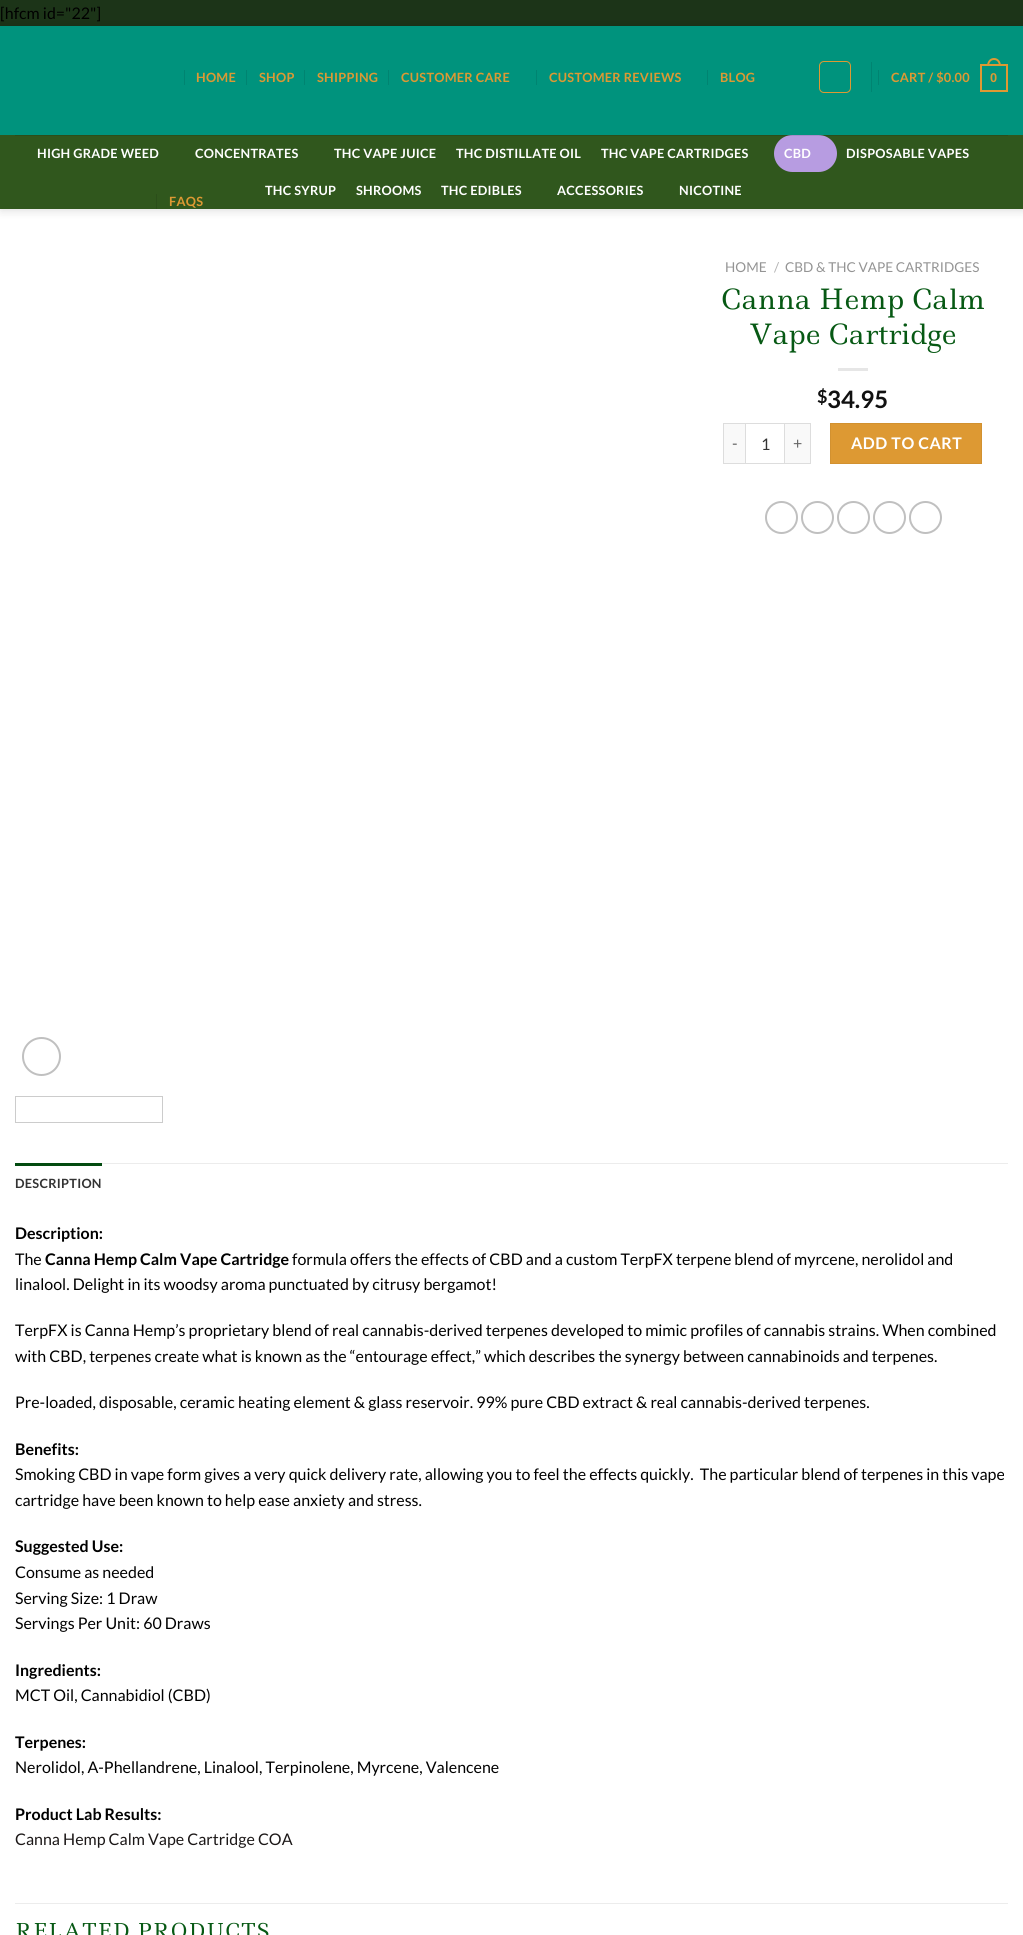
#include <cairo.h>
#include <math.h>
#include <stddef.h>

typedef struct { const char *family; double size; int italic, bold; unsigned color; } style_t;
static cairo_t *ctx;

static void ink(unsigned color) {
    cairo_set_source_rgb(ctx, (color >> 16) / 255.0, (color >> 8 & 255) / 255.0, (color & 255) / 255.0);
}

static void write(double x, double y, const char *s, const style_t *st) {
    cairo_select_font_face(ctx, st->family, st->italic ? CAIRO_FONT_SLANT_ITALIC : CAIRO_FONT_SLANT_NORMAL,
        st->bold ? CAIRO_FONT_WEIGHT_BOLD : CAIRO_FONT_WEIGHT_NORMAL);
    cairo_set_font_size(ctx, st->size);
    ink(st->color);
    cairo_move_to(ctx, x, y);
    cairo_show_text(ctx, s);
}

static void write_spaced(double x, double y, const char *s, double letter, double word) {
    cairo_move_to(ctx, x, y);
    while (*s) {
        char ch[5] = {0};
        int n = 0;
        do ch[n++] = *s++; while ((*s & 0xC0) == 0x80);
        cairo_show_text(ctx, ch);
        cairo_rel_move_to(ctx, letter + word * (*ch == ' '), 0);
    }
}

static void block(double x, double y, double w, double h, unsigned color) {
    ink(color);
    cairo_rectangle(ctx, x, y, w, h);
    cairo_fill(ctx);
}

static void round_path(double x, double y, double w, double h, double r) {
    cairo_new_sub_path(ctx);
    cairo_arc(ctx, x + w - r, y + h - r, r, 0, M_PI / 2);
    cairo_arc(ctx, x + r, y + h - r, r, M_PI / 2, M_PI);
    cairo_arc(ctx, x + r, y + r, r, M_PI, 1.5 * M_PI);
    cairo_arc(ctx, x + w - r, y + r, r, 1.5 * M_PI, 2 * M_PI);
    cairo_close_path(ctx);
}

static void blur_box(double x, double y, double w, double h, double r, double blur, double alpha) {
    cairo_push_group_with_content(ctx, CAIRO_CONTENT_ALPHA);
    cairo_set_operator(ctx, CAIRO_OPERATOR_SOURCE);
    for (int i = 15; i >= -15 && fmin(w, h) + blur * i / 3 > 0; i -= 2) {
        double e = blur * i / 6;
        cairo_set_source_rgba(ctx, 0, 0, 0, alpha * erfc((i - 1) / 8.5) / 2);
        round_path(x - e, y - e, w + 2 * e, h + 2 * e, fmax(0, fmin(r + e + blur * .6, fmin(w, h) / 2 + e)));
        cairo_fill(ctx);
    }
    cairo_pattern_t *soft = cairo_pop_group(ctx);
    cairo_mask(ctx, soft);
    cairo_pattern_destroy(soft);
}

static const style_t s1 = {"Lato", 16, 0, 0, 0x000000};
static const style_t s2 = {"Lato", 13.6, 0, 0, 0x949494};
static const style_t s3 = {"Lato", 13.6, 0, 0, 0xb2b2b2};
static const style_t s4 = {"Ledger", 27.25, 0, 0, 0x075914};
static const style_t s5 = {"Lato", 18, 0, 1, 0x111111};
static const style_t s6 = {"Lato", 24, 0, 1, 0x111111};
static const style_t s7 = {"Lato", 16, 0, 0, 0x666666};
static const style_t s8 = {"Lato", 16, 0, 0, 0x333333};
static const style_t s9 = {"Lato", 16, 0, 1, 0x000000};
static const style_t s10 = {"Lato", 16, 0, 0, 0x1b1717};

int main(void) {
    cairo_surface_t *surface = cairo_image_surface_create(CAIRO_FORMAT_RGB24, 1023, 1935);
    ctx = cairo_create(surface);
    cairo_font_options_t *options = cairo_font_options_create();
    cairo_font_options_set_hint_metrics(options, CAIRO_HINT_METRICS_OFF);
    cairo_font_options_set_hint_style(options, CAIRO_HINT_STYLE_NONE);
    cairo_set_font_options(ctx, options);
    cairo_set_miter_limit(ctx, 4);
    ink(0x1c3418);
    cairo_paint(ctx);
    write(0, 19, "[hfcm id=\"22\"]", &s1);
    block(0, 209, 1023, 1726, 0xffffff);
    block(15, 1164, 87, 2, 0x034b10);
    ink(0x000000);
    blur_box(1, 27, 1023, 183, 0, 5, 0.15);
    block(0, 26, 1023, 109, 0x00937d);
    block(184, 70, 1, 15, 0x008471);
    cairo_select_font_face(ctx, "Lato", CAIRO_FONT_SLANT_NORMAL, CAIRO_FONT_WEIGHT_BOLD);
    cairo_set_font_size(ctx, 12.75);
    ink(0xdd9933);
    write_spaced(196, 82, "HOME", 0.25, 0);
    block(246, 70, 1, 15, 0x008471);
    ink(0xdd9933);
    write_spaced(259, 82, "SHOP", 0.25, 0);
    block(304, 70, 1, 15, 0x008471);
    ink(0xdd9933);
    write_spaced(317, 82, "SHIPPING", 0.25, 0);
    block(388, 70, 1, 15, 0x008471);
    ink(0xdd9933);
    write_spaced(401, 82, "CUSTOMER CARE", 0.25, 0);
    block(536, 70, 1, 15, 0x008471);
    ink(0xdd9933);
    write_spaced(549, 82, "CUSTOMER REVIEWS", 0.25, 0);
    block(707, 70, 1, 15, 0x008471);
    ink(0xdd9933);
    write_spaced(720, 82, "BLOG", 0.25, 0);
    block(0, 135, 1023, 74, 0x30571d);
    block(156, 194, 1, 15, 0x2b4e1a);
    ink(0xdd9933);
    write_spaced(169, 206, "FAQS", 0.25, 0);
    round_path(819.5, 61.5, 31, 31, 4.5);
    cairo_set_line_width(ctx, 1);
    cairo_stroke(ctx);
    block(871, 62, 1, 30, 0x008471);
    block(878, 70, 1, 15, 0x008471);
    ink(0xdd9933);
    write_spaced(891, 82, "CART / $0.00", 0.25, 0);
    cairo_rectangle(ctx, 981, 65, 26, 26);
    cairo_set_line_width(ctx, 2);
    cairo_stroke(ctx);
    cairo_set_fill_rule(ctx, CAIRO_FILL_RULE_EVEN_ODD);
    cairo_new_path(ctx);
    cairo_move_to(ctx, 994, 58);
    cairo_curve_to(ctx, 998.5, 58, 1001, 62, 1001, 66);
    cairo_line_to(ctx, 987, 66);
    cairo_curve_to(ctx, 987, 62, 989.5, 58, 994, 58);
    cairo_close_path(ctx);
    cairo_move_to(ctx, 994, 60);
    cairo_curve_to(ctx, 997.5, 60, 999, 63, 999, 66);
    cairo_line_to(ctx, 989, 66);
    cairo_curve_to(ctx, 989, 63, 990.5, 60, 994, 60);
    cairo_close_path(ctx);
    cairo_fill(ctx);
    cairo_select_font_face(ctx, "Liberation Sans", CAIRO_FONT_SLANT_NORMAL, CAIRO_FONT_WEIGHT_BOLD);
    write_spaced(990, 82, "0", 0.25, 0);
    ink(0xb79ce1);
    round_path(774, 135, 63, 37, 18.5);
    cairo_fill(ctx);
    cairo_set_source_rgba(ctx, 0, 0, 0, 0.1);
    cairo_rectangle(ctx, 15, 135, 993, 1);
    cairo_fill(ctx);
    cairo_select_font_face(ctx, "Lato", CAIRO_FONT_SLANT_NORMAL, CAIRO_FONT_WEIGHT_BOLD);
    ink(0xffffff);
    write_spaced(37, 158, "HIGH GRADE WEED", 0.25, 0);
    write_spaced(195, 158, "CONCENTRATES", 0.25, 0);
    write_spaced(334, 158, "THC VAPE JUICE", 0.25, 0);
    write_spaced(456, 158, "THC DISTILLATE OIL", 0.25, 0);
    write_spaced(601, 158, "THC VAPE CARTRIDGES", 0.25, 0);
    write_spaced(784, 158, "CBD", 0.25, 0);
    write_spaced(846, 158, "DISPOSABLE VAPES", 0.25, 0);
    write_spaced(265, 195, "THC SYRUP", 0.25, 0);
    write_spaced(356, 195, "SHROOMS", 0.25, 0);
    write_spaced(441, 195, "THC EDIBLES", 0.25, 0);
    write_spaced(557, 195, "ACCESSORIES", 0.25, 0);
    write_spaced(679, 195, "NICOTINE", 0.25, 0);
    write(725, 272, "HOME", &s2);
    write(774, 272, "/", &s3);
    write(785, 272, "CBD & THC VAPE CARTRIDGES", &s2);
    write(721, 309, "Canna Hemp Calm", &s4);
    write(749, 344, "Vape Cartridge", &s4);
    block(838, 368, 30, 3, 0xe6e6e6);
    write(817, 403, "$", &s5);
    write(827, 408, "34.95", &s6);
    block(724, 424, 21, 39, 0xf9f9f9);
    block(723, 423, 22, 1, 0xdddddd);
    block(723, 463, 22, 1, 0xdddddd);
    block(723, 423, 1, 41, 0xdddddd);
    write(732, 449, "-", &s7);
    cairo_rectangle(ctx, 745.5, 423.5, 39, 40);
    ink(0xdddddd);
    cairo_set_line_width(ctx, 1);
    cairo_stroke(ctx);
    write(761, 450, "1", &s8);
    block(785, 424, 25, 39, 0xf9f9f9);
    block(785, 423, 26, 1, 0xdddddd);
    block(810, 423, 1, 41, 0xdddddd);
    block(785, 463, 26, 1, 0xdddddd);
    write(793, 449, "+", &s7);
    ink(0xdd9933);
    cairo_rectangle(ctx, 830.5, 423.5, 151, 40);
    cairo_fill_preserve(ctx);
    ink(0xd29130);
    cairo_stroke(ctx);
    cairo_select_font_face(ctx, "Lato", CAIRO_FONT_SLANT_NORMAL, CAIRO_FONT_WEIGHT_BOLD);
    ink(0xffffff);
    write_spaced(851, 449, "ADD TO CART", 0.5, 0);
    cairo_new_path(ctx);
    cairo_arc(ctx, 781.5, 517.5, 15.5, 0, 2 * M_PI);
    ink(0xc0c0c0);
    cairo_set_line_width(ctx, 2);
    cairo_stroke(ctx);
    cairo_arc(ctx, 817.5, 517.5, 15.5, 0, 2 * M_PI);
    cairo_stroke(ctx);
    cairo_arc(ctx, 853.5, 517.5, 15.5, 0, 2 * M_PI);
    cairo_stroke(ctx);
    cairo_arc(ctx, 889.5, 517.5, 15.5, 0, 2 * M_PI);
    cairo_stroke(ctx);
    cairo_arc(ctx, 925.5, 517.5, 15.5, 0, 2 * M_PI);
    cairo_stroke(ctx);
    cairo_arc(ctx, 41.5, 1056.5, 18.5, 0, 2 * M_PI);
    cairo_stroke(ctx);
    cairo_rectangle(ctx, 15.5, 1096.5, 147, 26);
    ink(0xcccccc);
    cairo_set_line_width(ctx, 1);
    cairo_stroke(ctx);
    block(102, 1163, 906, 1, 0xececec);
    block(15, 1163, 87, 1, 0x024b10);
    cairo_set_font_size(ctx, 12.75);
    ink(0x333333);
    write_spaced(15, 1188, "DESCRIPTION", 0.25, 0);
    write(15, 1239, "Description:", &s9);
    write(15, 1265, "The", &s1);
    write(45, 1265, "Canna Hemp Calm Vape Cartridge", &s9);
    write(292, 1265, "formula offers the effects of CBD and a custom TerpFX terpene blend of myrcene, nerolidol and", &s1);
    write(15, 1290, "linalool. Delight in its woodsy aroma punctuated by citrusy bergamot!", &s1);
    write(15, 1336, "TerpFX is Canna Hemp’s proprietary blend of real cannabis-derived terpenes developed to mimic profiles of cannabis strains. When combined", &s1);
    write(15, 1362, "with CBD, terpenes create what is known as the “entourage effect,” which describes the synergy between cannabinoids and terpenes.", &s1);
    write(15, 1408, "Pre-loaded, disposable, ceramic heating element & glass reservoir. 99% pure CBD extract & real cannabis-derived terpenes.", &s1);
    write(15, 1455, "Benefits:", &s9);
    write(15, 1480, "Smoking CBD in vape form gives a very quick delivery rate, allowing you to feel the effects quickly.  The particular blend of terpenes in this vape", &s1);
    write(15, 1506, "cartridge have been known to help ease anxiety and stress.", &s1);
    write(15, 1552, "Suggested Use:", &s9);
    write(15, 1578, "Consume as needed", &s1);
    write(15, 1604, "Serving Size: 1 Draw", &s1);
    write(15, 1629, "Servings Per Unit: 60 Draws", &s1);
    write(15, 1676, "Ingredients:", &s9);
    write(15, 1701, "MCT Oil, Cannabidiol (CBD)", &s1);
    write(15, 1748, "Terpenes:", &s9);
    write(15, 1773, "Nerolidol, A-Phellandrene, Linalool, Terpinolene, Myrcene, Valencene", &s1);
    write(15, 1820, "Product Lab Results:", &s9);
    write(15, 1845, "Canna Hemp Calm Vape Cartridge COA", &s10);
    block(15, 1903, 993, 1, 0xececec);
    cairo_select_font_face(ctx, "Ledger", CAIRO_FONT_SLANT_NORMAL, CAIRO_FONT_WEIGHT_NORMAL);
    cairo_set_font_size(ctx, 20);
    ink(0x075914);
    write_spaced(15, 1938, "RELATED PRODUCTS", 1, 0);
    cairo_surface_write_to_png(surface, "screenshot.png");
    cairo_font_options_destroy(options);
    cairo_destroy(ctx);
    cairo_surface_destroy(surface);
    return 0;
}
